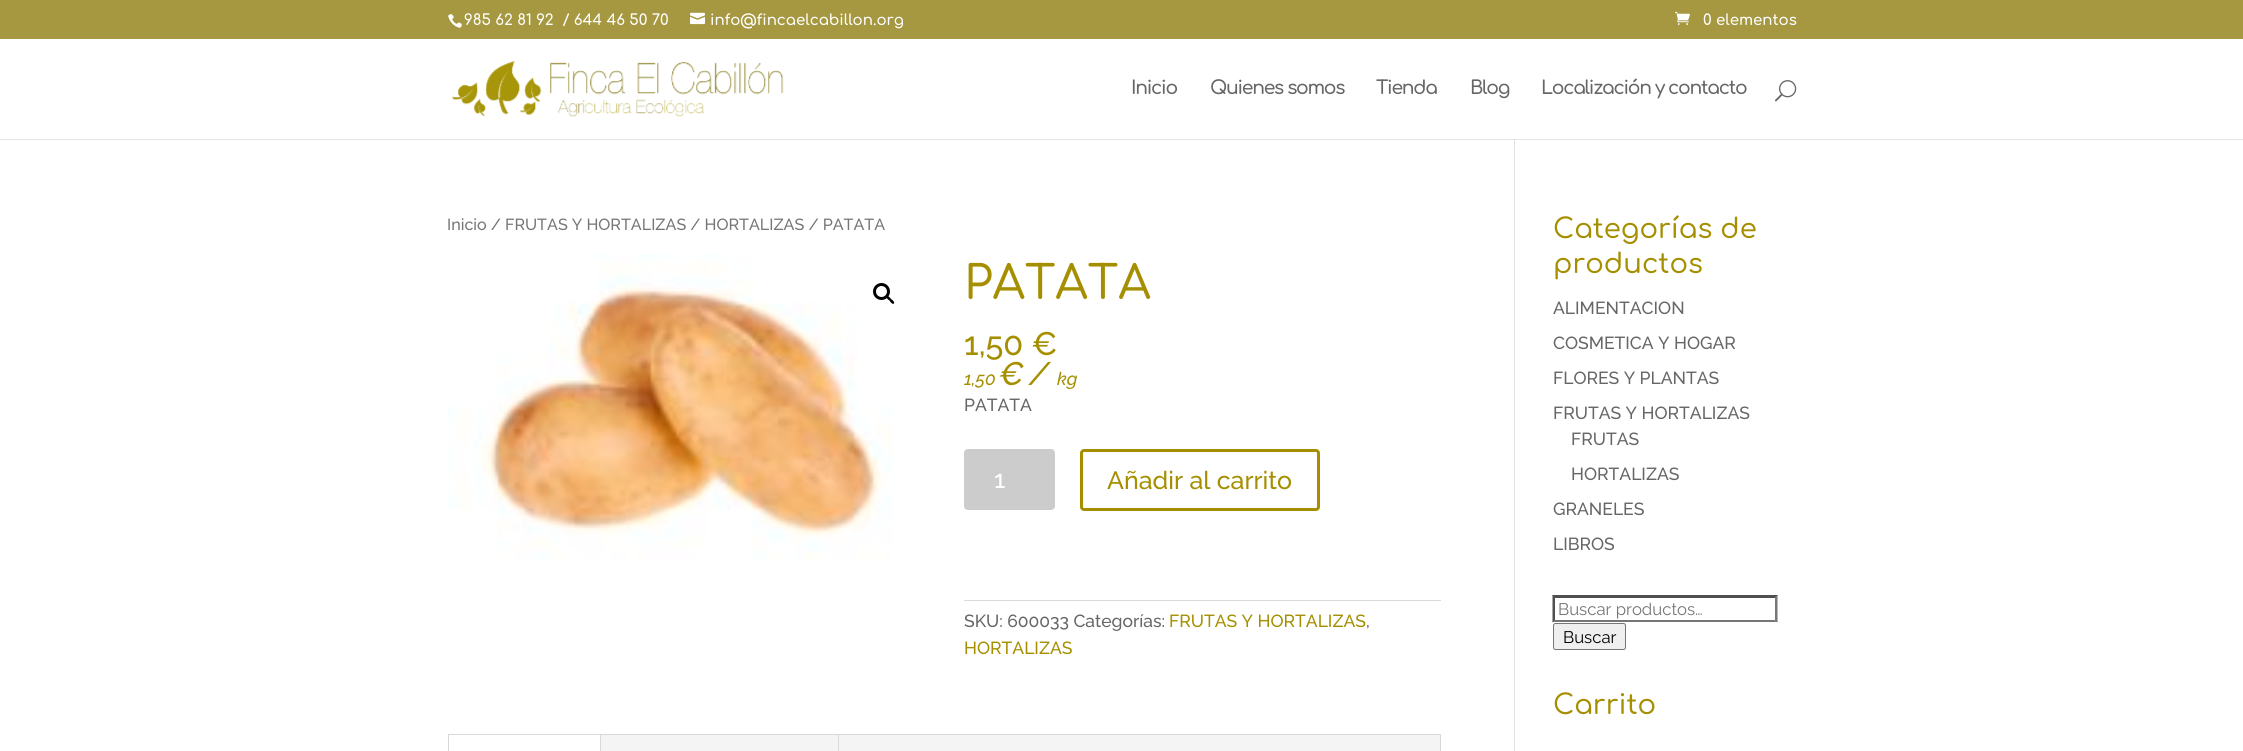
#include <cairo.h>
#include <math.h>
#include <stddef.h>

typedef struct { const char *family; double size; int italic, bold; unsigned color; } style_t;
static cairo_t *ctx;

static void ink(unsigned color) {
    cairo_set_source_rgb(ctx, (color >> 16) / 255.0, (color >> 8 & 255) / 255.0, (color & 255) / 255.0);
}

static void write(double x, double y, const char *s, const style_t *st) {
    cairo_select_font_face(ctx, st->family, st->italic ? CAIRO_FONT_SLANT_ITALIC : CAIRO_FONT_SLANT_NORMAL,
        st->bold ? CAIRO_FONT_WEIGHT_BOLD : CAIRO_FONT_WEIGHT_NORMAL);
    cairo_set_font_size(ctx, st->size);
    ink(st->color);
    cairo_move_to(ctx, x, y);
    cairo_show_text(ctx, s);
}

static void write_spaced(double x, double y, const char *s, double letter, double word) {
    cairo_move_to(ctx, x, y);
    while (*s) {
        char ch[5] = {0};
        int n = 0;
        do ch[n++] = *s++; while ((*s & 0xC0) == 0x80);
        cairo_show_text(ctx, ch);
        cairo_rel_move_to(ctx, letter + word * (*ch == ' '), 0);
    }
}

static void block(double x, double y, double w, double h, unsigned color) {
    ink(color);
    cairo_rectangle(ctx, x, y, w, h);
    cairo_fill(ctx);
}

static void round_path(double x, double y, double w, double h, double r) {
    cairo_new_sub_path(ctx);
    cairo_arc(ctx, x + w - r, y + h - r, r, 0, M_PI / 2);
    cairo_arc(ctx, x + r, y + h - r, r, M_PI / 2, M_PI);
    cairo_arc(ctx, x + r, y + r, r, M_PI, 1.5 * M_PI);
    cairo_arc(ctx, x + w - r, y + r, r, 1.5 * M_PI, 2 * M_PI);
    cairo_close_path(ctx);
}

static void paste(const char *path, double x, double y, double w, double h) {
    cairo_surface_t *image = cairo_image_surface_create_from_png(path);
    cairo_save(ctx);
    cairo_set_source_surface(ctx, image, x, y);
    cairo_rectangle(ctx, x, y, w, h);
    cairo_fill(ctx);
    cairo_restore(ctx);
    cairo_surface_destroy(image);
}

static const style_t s1 = {"Comfortaa SemiBold", 15, 0, 0, 0xffffff};
static const style_t s2 = {"Raleway Medium", 16.1, 0, 0, 0x767676};
static const style_t s3 = {"Comfortaa Medium", 46.25, 0, 0, 0xa58f00};
static const style_t s4 = {"Raleway Medium", 32.5, 0, 0, 0xa58f00};
static const style_t s5 = {"Raleway Medium", 18, 1, 0, 0xa58f00};
static const style_t s6 = {"Raleway Medium", 32.5, 1, 0, 0xa58f00};
static const style_t s7 = {"Raleway Medium", 17.5, 0, 0, 0x666666};
static const style_t s8 = {"Raleway Medium", 25, 0, 0, 0xffffff};
static const style_t s9 = {"Raleway Medium", 25, 0, 0, 0xa58f00};
static const style_t s10 = {"Raleway Medium", 17.5, 0, 0, 0xa58f00};
static const style_t s11 = {"Comfortaa Medium", 27.5, 0, 0, 0xa58f00};
static const style_t s12 = {"Raleway", 16.75, 0, 0, 0x767676};
static const style_t s13 = {"Raleway", 16.75, 0, 0, 0x000000};

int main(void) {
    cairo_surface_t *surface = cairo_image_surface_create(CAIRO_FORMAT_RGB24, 2243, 751);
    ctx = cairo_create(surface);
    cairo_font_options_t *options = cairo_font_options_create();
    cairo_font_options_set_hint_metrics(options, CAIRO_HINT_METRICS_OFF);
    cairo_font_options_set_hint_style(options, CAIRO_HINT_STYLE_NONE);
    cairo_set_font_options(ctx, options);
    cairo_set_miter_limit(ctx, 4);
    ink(0xffffff);
    cairo_paint(ctx);
    block(0, 0, 2243, 39, 0xa69841);
    paste("pic1.png", 448, 14, 14, 14);
    write(464, 25, "985 62 81 92  / 644 46 50 70", &s1);
    paste("pic2.png", 690, 12, 15, 13);
    write(710, 25, "info@fincaelcabillon.org", &s1);
    paste("pic3.png", 1675, 11, 15, 14);
    write(1703, 25, "0 elementos", &s1);
    block(1514, 139, 1, 612, 0xe2e2e2);
    cairo_set_source_rgba(ctx, 0, 0, 0, 0.1);
    cairo_new_path(ctx);
    cairo_move_to(ctx, 0, 139);
    cairo_line_to(ctx, 0, 140);
    cairo_line_to(ctx, 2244, 140);
    cairo_line_to(ctx, 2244, 40);
    cairo_line_to(ctx, 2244, 139);
    cairo_close_path(ctx);
    cairo_fill(ctx);
    paste("pic4.png", 452, 61, 332, 56);
    cairo_set_font_size(ctx, 18.75);
    ink(0x666666);
    write_spaced(1131, 94, "Inicio", -1.25, 0);
    write_spaced(1210, 94, "Quienes somos", -1.25, 0);
    write_spaced(1376, 94, "Tienda", -1.25, 0);
    write_spaced(1470, 94, "Blog", -1.25, 0);
    write_spaced(1541, 94, "Localización y contacto", -1.25, 0);
    paste("pic5.png", 1775, 80, 22, 22);
    write(447, 230, "Inicio / FRUTAS Y HORTALIZAS / HORTALIZAS / PATATA", &s2);
    paste("pic6.png", 448, 254, 446, 306);
    cairo_arc(ctx, 881.5, 291.5, 7, 0, 2 * M_PI);
    ink(0x000000);
    cairo_set_line_width(ctx, 3);
    cairo_stroke(ctx);
    cairo_new_path(ctx);
    cairo_move_to(ctx, 886.5, 296.5);
    cairo_curve_to(ctx, 888, 295, 890.5, 298, 891, 299);
    cairo_curve_to(ctx, 892, 299.5, 895, 302, 894, 303.5);
    cairo_curve_to(ctx, 892.5, 305, 890, 301.5, 889.5, 300.5);
    cairo_curve_to(ctx, 888.5, 300, 885.5, 297.5, 886.5, 296.5);
    cairo_close_path(ctx);
    cairo_fill(ctx);
    write(964, 299, "PATATA", &s3);
    write(964, 355, "1,50 €", &s4);
    write(964, 385, "1,50", &s5);
    write(999, 385, "€", &s6);
    write(1029, 385, "/", &s6);
    write(1057, 385, "kg", &s5);
    write(964, 411, "PATATA", &s7);
    ink(0xcccccc);
    round_path(964, 449, 91, 61, 4);
    cairo_fill(ctx);
    write(994, 488, "1", &s8);
    round_path(1081.5, 450.5, 237, 59, 2.5);
    ink(0xa58f00);
    cairo_stroke(ctx);
    write(1107, 489, "Añadir al carrito", &s9);
    block(964, 600, 477, 1, 0xdadada);
    write(964, 627, "SKU: 600033 Categorías:", &s7);
    write(1169, 627, "FRUTAS Y HORTALIZAS", &s10);
    write(1366, 627, ",", &s7);
    write(964, 654, "HORTALIZAS", &s10);
    cairo_rectangle(ctx, 448.5, 734.5, 992, 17);
    ink(0xd9d9d9);
    cairo_set_line_width(ctx, 1);
    cairo_stroke(ctx);
    block(601, 735, 839, 16, 0xf4f4f4);
    block(600, 735, 1, 16, 0xd9d9d9);
    block(838, 735, 1, 16, 0xd9d9d9);
    write(1553, 238, "Categorías de", &s11);
    write(1553, 273, "productos", &s11);
    write(1553, 314, "ALIMENTACION", &s7);
    write(1553, 349, "COSMETICA Y HOGAR", &s7);
    write(1553, 384, "FLORES Y PLANTAS", &s7);
    write(1553, 419, "FRUTAS Y HORTALIZAS", &s7);
    write(1571, 445, "FRUTAS", &s7);
    write(1571, 480, "HORTALIZAS", &s7);
    write(1553, 515, "GRANELES", &s7);
    write(1553, 550, "LIBROS", &s7);
    ink(0x4f4f4f);
    cairo_new_path(ctx);
    cairo_move_to(ctx, 1552, 595);
    cairo_line_to(ctx, 1778, 595);
    cairo_line_to(ctx, 1775, 598);
    cairo_line_to(ctx, 1555, 598);
    cairo_close_path(ctx);
    cairo_fill(ctx);
    ink(0x767676);
    cairo_new_path(ctx);
    cairo_move_to(ctx, 1777.5, 595);
    cairo_line_to(ctx, 1777.5, 622.5);
    cairo_line_to(ctx, 1775, 620);
    cairo_line_to(ctx, 1775, 597.5);
    cairo_close_path(ctx);
    cairo_fill(ctx);
    cairo_new_path(ctx);
    cairo_move_to(ctx, 1778, 622);
    cairo_line_to(ctx, 1552, 622);
    cairo_line_to(ctx, 1555, 620);
    cairo_line_to(ctx, 1775, 620);
    cairo_close_path(ctx);
    cairo_fill(ctx);
    ink(0x4f4f4f);
    cairo_new_path(ctx);
    cairo_move_to(ctx, 1552.5, 622.5);
    cairo_line_to(ctx, 1552.5, 595);
    cairo_line_to(ctx, 1555, 597.5);
    cairo_line_to(ctx, 1555, 620);
    cairo_close_path(ctx);
    cairo_fill(ctx);
    write(1558, 615, "Buscar productos…", &s12);
    ink(0xefefef);
    round_path(1553.5, 623.5, 72, 26, 2);
    cairo_fill_preserve(ctx);
    ink(0x767676);
    cairo_stroke(ctx);
    write(1563, 643, "Buscar", &s13);
    write(1553, 714, "Carrito", &s11);
    cairo_surface_write_to_png(surface, "screenshot.png");
    cairo_font_options_destroy(options);
    cairo_destroy(ctx);
    cairo_surface_destroy(surface);
    return 0;
}
